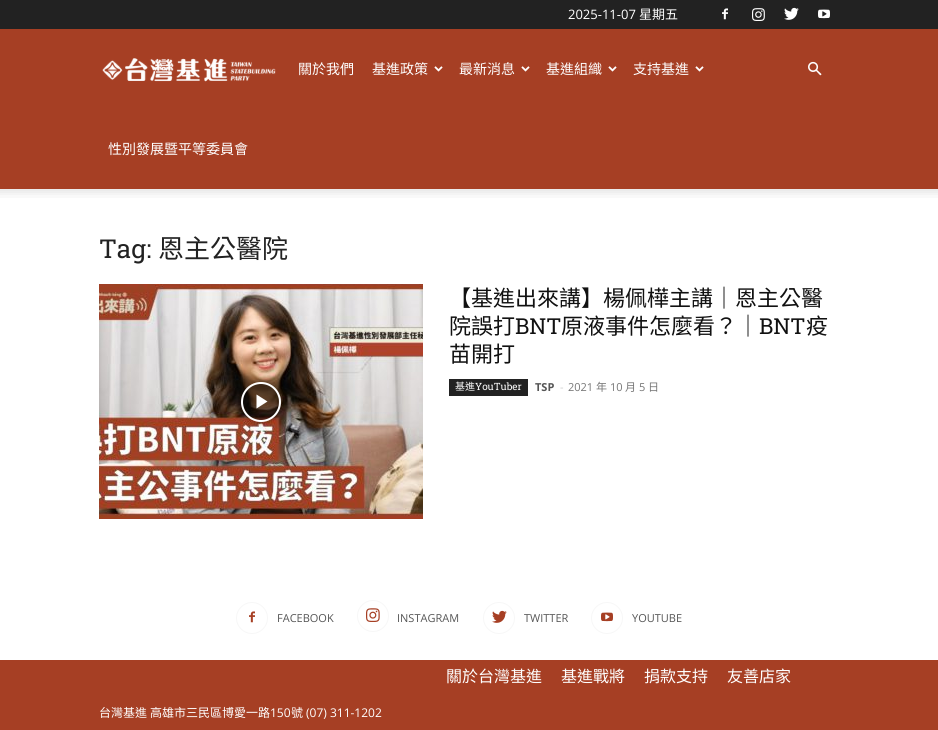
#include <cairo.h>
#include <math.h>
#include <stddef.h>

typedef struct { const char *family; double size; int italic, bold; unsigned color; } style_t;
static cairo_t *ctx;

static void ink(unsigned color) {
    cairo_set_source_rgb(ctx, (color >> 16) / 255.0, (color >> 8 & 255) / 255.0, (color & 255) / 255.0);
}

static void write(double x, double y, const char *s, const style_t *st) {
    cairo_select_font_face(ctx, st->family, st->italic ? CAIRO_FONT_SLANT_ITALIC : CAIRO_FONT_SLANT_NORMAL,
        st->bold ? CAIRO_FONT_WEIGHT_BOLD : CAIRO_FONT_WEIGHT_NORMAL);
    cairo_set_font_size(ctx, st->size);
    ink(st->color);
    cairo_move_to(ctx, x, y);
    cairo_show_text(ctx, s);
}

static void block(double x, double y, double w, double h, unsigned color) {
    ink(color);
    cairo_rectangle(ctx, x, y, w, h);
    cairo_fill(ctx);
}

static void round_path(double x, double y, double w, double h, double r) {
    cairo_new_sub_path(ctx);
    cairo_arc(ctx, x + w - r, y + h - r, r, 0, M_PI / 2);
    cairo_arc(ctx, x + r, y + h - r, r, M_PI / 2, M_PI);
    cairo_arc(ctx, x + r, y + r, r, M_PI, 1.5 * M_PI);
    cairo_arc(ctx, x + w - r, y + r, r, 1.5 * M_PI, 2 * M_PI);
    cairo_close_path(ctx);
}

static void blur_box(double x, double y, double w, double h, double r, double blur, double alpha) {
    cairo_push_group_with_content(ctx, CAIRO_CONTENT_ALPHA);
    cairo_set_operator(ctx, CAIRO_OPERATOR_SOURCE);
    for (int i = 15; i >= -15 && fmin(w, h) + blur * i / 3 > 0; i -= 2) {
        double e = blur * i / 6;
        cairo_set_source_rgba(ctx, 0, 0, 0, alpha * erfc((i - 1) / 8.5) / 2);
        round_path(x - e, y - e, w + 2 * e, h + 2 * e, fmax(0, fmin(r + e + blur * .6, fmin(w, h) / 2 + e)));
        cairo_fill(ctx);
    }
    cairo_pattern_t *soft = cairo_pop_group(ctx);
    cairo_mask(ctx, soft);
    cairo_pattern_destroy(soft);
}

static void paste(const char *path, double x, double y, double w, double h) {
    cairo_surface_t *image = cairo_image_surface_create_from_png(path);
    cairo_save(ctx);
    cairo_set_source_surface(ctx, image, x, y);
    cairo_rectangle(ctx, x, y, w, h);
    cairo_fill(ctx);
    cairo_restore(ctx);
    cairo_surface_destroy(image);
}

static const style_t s1 = {"Open Sans", 13, 0, 0, 0xffffff};
static const style_t s2 = {"Noto Sans CJK TC", 13, 0, 0, 0xffffff};
static const style_t s3 = {"Noto Sans CJK TC", 14, 0, 0, 0xffffff};
static const style_t s4 = {"Roboto Slab", 26, 0, 0, 0x222222};
static const style_t s5 = {"Noto Sans CJK TC", 26, 0, 0, 0x222222};
static const style_t s6 = {"Noto Sans CJK TC", 22, 0, 0, 0x111111};
static const style_t s7 = {"Roboto Slab", 22, 0, 0, 0x111111};
static const style_t s8 = {"Noto Sans CJK TC", 10, 0, 0, 0xffffff};
static const style_t s9 = {"Roboto Slab", 10, 0, 0, 0xffffff};
static const style_t s10 = {"Open Sans", 11, 0, 1, 0x555555};
static const style_t s11 = {"Open Sans", 11, 0, 0, 0xcccccc};
static const style_t s12 = {"Open Sans", 11, 0, 0, 0x767676};
static const style_t s13 = {"Noto Sans CJK TC", 11, 0, 0, 0x767676};
static const style_t s14 = {"Open Sans", 11, 0, 0, 0x555555};
static const style_t s15 = {"Noto Sans CJK TC", 16, 0, 0, 0xffffff};
static const style_t s16 = {"Noto Sans CJK TC", 12, 0, 0, 0xffffff};
static const style_t s17 = {"Open Sans", 12, 0, 0, 0xffffff};

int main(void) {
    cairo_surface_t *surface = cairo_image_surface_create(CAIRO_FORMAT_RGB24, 938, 730);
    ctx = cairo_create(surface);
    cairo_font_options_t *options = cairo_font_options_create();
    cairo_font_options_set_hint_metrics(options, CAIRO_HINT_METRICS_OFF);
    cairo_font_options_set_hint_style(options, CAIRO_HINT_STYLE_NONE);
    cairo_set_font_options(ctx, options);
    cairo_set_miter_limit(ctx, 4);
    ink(0xffffff);
    cairo_paint(ctx);
    block(0, 0, 938, 29, 0x222222);
    write(568, 19, "2025-11-07", &s1);
    write(639, 19, "星期五", &s2);
    paste("pic1.png", 722, 8, 6, 12);
    paste("pic2.png", 752, 8, 13, 13);
    paste("pic3.png", 784, 7, 15, 13);
    paste("pic4.png", 818, 9, 12, 10);
    block(0, 29, 938, 160, 0xa63f24);
    paste("pic5.png", 102, 58, 174, 24);
    write(298, 74, "關於我們", &s3);
    write(372, 74, "基進政策", &s3);
    paste("pic6.png", 434, 66, 9, 6);
    write(459, 74, "最新消息", &s3);
    paste("pic6.png", 521, 66, 9, 6);
    write(546, 74, "基進組織", &s3);
    paste("pic6.png", 608, 66, 9, 6);
    write(633, 74, "支持基進", &s3);
    paste("pic6.png", 695, 66, 9, 6);
    write(108, 154, "性別發展暨平等委員會", &s3);
    paste("pic7.png", 808, 61, 14, 15);
    paste("pic8.png", 0, 189, 938, 9);
    write(99, 258, "Tag:", &s4);
    write(158, 258, "恩主公醫院", &s5);
    paste("pic9.png", 99, 284, 324, 235);
    cairo_save(ctx);
    cairo_set_fill_rule(ctx, CAIRO_FILL_RULE_EVEN_ODD);
    cairo_new_path(ctx);
    cairo_move_to(ctx, 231, 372);
    cairo_line_to(ctx, 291, 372);
    cairo_line_to(ctx, 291, 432);
    cairo_line_to(ctx, 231, 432);
    cairo_close_path(ctx);
    cairo_move_to(ctx, 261, 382);
    cairo_curve_to(ctx, 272, 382, 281, 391, 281, 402);
    cairo_curve_to(ctx, 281, 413, 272, 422, 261, 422);
    cairo_curve_to(ctx, 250, 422, 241, 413, 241, 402);
    cairo_curve_to(ctx, 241, 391, 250, 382, 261, 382);
    cairo_close_path(ctx);
    cairo_clip(ctx);
    ink(0x000000);
    blur_box(241, 382, 40, 40, 20, 3, 0.4);
    cairo_restore(ctx);
    cairo_set_source_rgba(ctx, 0, 0, 0, 0.48);
    cairo_arc(ctx, 261, 402, 19, 0, 2 * M_PI);
    cairo_fill_preserve(ctx);
    ink(0xffffff);
    cairo_stroke(ctx);
    cairo_new_path(ctx);
    cairo_move_to(ctx, 256.5, 394.5);
    cairo_line_to(ctx, 256.5, 408.5);
    cairo_line_to(ctx, 267.5, 401.5);
    cairo_close_path(ctx);
    cairo_fill(ctx);
    write(449, 306, "【基進出來講】楊佩樺主講｜恩主公醫", &s6);
    write(449, 334, "院誤打", &s6);
    write(515, 334, "BNT", &s7);
    write(561, 334, "原液事件怎麼看？｜", &s6);
    write(759, 334, "BNT", &s7);
    write(806, 334, "疫", &s6);
    write(449, 362, "苗開打", &s6);
    block(449, 379, 79, 17, 0x222222);
    write(455, 390, "基進", &s8);
    write(475, 390, "YouTuber", &s9);
    write(535, 391, "TSP", &s10);
    write(560, 391, "-", &s11);
    write(568, 391, "2021", &s12);
    write(596, 391, "年", &s13);
    write(610, 391, "10", &s12);
    write(625, 391, "月", &s13);
    write(639, 391, "5", &s12);
    write(648, 391, "日", &s13);
    paste("pic10.png", 249, 611, 6, 12);
    cairo_arc(ctx, 252, 618, 15.5, 0, 2 * M_PI);
    ink(0xf7f7f7);
    cairo_set_line_width(ctx, 1);
    cairo_stroke(ctx);
    write(277, 622, "FACEBOOK", &s14);
    paste("pic11.png", 366, 608, 14, 14);
    cairo_arc(ctx, 373, 616, 15.5, 0, 2 * M_PI);
    ink(0xf7f7f7);
    cairo_stroke(ctx);
    write(397, 622, "INSTAGRAM", &s14);
    paste("pic12.png", 492, 610, 15, 13);
    cairo_arc(ctx, 499, 618, 15.5, 0, 2 * M_PI);
    ink(0xf7f7f7);
    cairo_stroke(ctx);
    write(524, 622, "TWITTER", &s14);
    paste("pic13.png", 601, 612, 12, 10);
    cairo_arc(ctx, 607, 618, 15.5, 0, 2 * M_PI);
    ink(0xf7f7f7);
    cairo_stroke(ctx);
    write(632, 622, "YOUTUBE", &s14);
    block(0, 660, 938, 70, 0xa63f24);
    write(446, 682, "關於台灣基進", &s15);
    write(561, 682, "基進戰將", &s15);
    write(644, 682, "捐款支持", &s15);
    write(727, 682, "友善店家", &s15);
    write(99, 717, "台灣基進", &s16);
    write(150, 717, "高雄市三民區博愛一路", &s16);
    write(270, 717, "150", &s17);
    write(291, 717, "號", &s16);
    write(306, 717, "(07) 311-1202", &s17);
    cairo_surface_write_to_png(surface, "screenshot.png");
    cairo_font_options_destroy(options);
    cairo_destroy(ctx);
    cairo_surface_destroy(surface);
    return 0;
}
